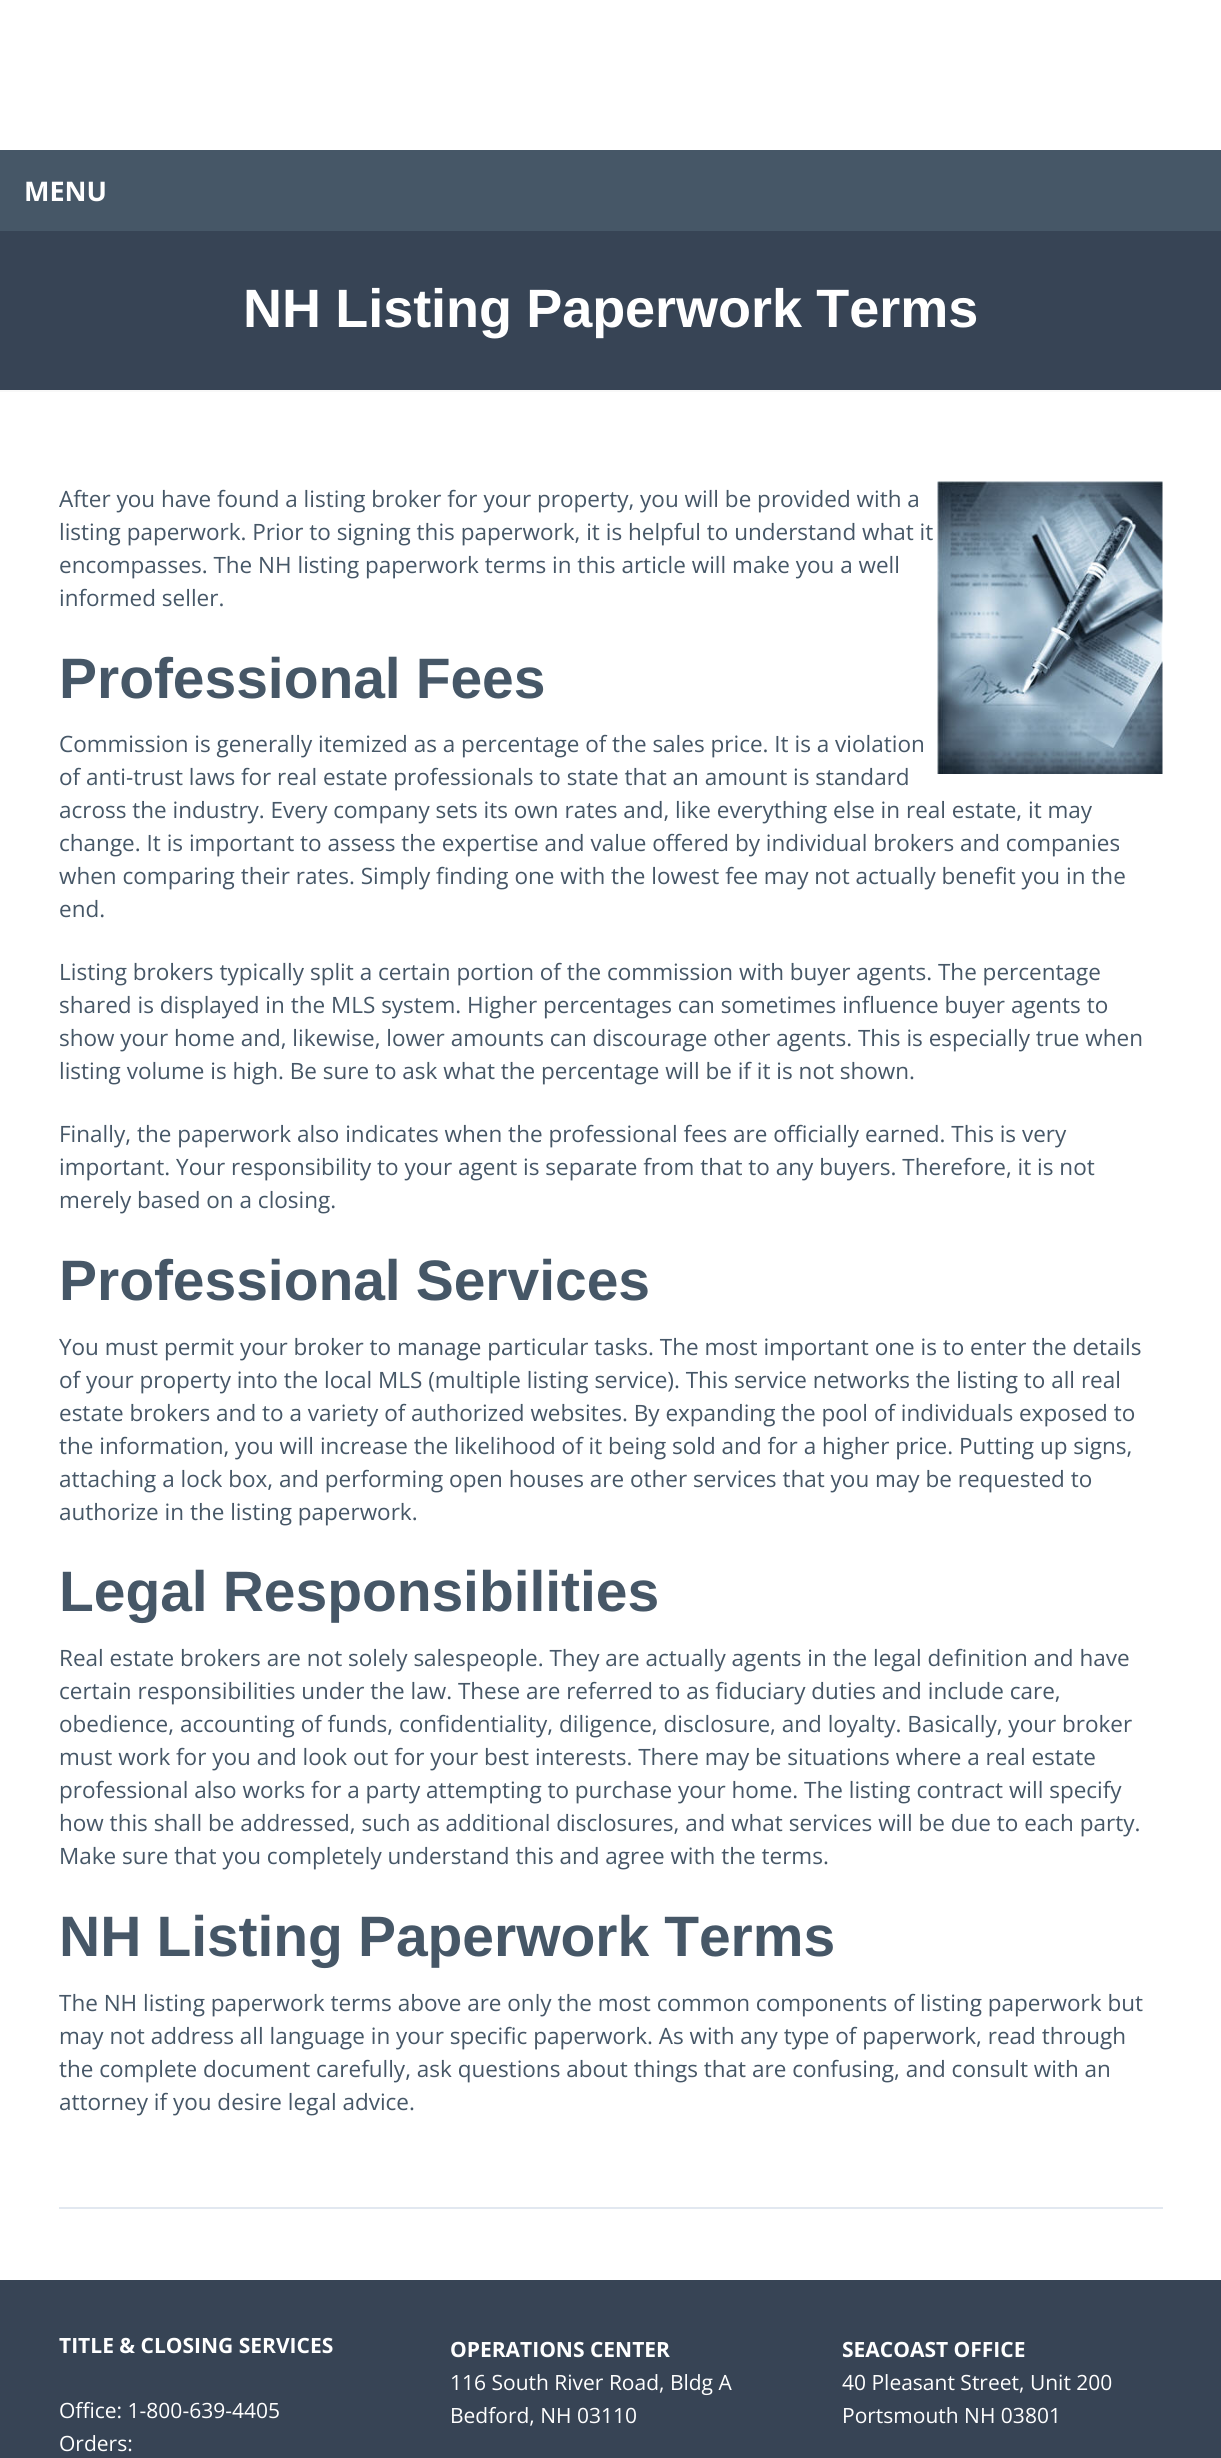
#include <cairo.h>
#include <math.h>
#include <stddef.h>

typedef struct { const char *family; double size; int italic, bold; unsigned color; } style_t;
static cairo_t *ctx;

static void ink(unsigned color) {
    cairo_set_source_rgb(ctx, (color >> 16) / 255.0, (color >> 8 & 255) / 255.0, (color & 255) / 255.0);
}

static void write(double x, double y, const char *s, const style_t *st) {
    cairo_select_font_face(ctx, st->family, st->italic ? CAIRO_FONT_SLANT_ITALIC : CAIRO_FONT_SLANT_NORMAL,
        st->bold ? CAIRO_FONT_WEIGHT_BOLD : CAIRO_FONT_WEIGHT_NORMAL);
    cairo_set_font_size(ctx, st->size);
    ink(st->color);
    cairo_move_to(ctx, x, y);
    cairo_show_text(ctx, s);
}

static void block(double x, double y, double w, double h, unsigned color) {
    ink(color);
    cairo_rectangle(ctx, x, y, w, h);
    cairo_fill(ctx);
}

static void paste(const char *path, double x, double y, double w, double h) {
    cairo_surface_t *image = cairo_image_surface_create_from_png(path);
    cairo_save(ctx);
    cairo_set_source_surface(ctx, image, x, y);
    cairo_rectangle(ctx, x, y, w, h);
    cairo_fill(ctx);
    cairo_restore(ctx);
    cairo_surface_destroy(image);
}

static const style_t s1 = {"Open Sans", 27, 0, 1, 0xffffff};
static const style_t s2 = {"Ramabhadra", 54, 0, 0, 0xffffff};
static const style_t s3 = {"Open Sans", 22.5, 0, 0, 0x465767};
static const style_t s4 = {"Ramabhadra", 57, 0, 0, 0x465767};
static const style_t s5 = {"Open Sans", 21, 0, 1, 0xffffff};
static const style_t s6 = {"Open Sans", 21, 0, 0, 0xffffff};

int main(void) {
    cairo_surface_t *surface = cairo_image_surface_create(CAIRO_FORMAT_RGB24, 1221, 2458);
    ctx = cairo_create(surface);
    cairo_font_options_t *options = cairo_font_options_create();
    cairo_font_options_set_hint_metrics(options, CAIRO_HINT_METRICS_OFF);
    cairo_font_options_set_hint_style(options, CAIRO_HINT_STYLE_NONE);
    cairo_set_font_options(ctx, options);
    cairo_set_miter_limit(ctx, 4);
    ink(0xffffff);
    cairo_paint(ctx);
    block(0, 150, 1221, 81, 0x465767);
    write(24, 201, "MENU", &s1);
    block(0, 231, 1221, 159, 0x374455);
    block(0, 390, 1221, 2, 0xf8f8f8);
    write(243, 327, "NH Listing Paperwork Terms", &s2);
    block(59, 2207, 1104, 2, 0xe2e8f0);
    write(59, 507, "After you have found a listing broker for your property, you will be provided with a", &s3);
    paste("pic1.png", 937, 481, 226, 293);
    write(59, 540, "listing paperwork. Prior to signing this paperwork, it is helpful to understand what it", &s3);
    write(59, 573, "encompasses. The NH listing paperwork terms in this article will make you a well", &s3);
    write(59, 606, "informed seller.", &s3);
    write(59, 698, "Professional Fees", &s4);
    write(59, 752, "Commission is generally itemized as a percentage of the sales price. It is a violation", &s3);
    write(59, 785, "of anti-trust laws for real estate professionals to state that an amount is standard", &s3);
    write(59, 818, "across the industry. Every company sets its own rates and, like everything else in real estate, it may", &s3);
    write(59, 851, "change. It is important to assess the expertise and value offered by individual brokers and companies", &s3);
    write(59, 884, "when comparing their rates. Simply finding one with the lowest fee may not actually benefit you in the", &s3);
    write(59, 917, "end.", &s3);
    write(59, 980, "Listing brokers typically split a certain portion of the commission with buyer agents. The percentage", &s3);
    write(59, 1013, "shared is displayed in the MLS system. Higher percentages can sometimes influence buyer agents to", &s3);
    write(59, 1046, "show your home and, likewise, lower amounts can discourage other agents. This is especially true when", &s3);
    write(59, 1079, "listing volume is high. Be sure to ask what the percentage will be if it is not shown.", &s3);
    write(59, 1142, "Finally, the paperwork also indicates when the professional fees are officially earned. This is very", &s3);
    write(59, 1175, "important. Your responsibility to your agent is separate from that to any buyers. Therefore, it is not", &s3);
    write(59, 1208, "merely based on a closing.", &s3);
    write(59, 1300, "Professional Services", &s4);
    write(59, 1355, "You must permit your broker to manage particular tasks. The most important one is to enter the details", &s3);
    write(59, 1388, "of your property into the local MLS (multiple listing service). This service networks the listing to all real", &s3);
    write(59, 1421, "estate brokers and to a variety of authorized websites. By expanding the pool of individuals exposed to", &s3);
    write(59, 1454, "the information, you will increase the likelihood of it being sold and for a higher price. Putting up signs,", &s3);
    write(59, 1487, "attaching a lock box, and performing open houses are other services that you may be requested to", &s3);
    write(59, 1520, "authorize in the listing paperwork.", &s3);
    write(59, 1611, "Legal Responsibilities", &s4);
    write(59, 1666, "Real estate brokers are not solely salespeople. They are actually agents in the legal definition and have", &s3);
    write(59, 1699, "certain responsibilities under the law. These are referred to as fiduciary duties and include care,", &s3);
    write(59, 1732, "obedience, accounting of funds, confidentiality, diligence, disclosure, and loyalty. Basically, your broker", &s3);
    write(59, 1765, "must work for you and look out for your best interests. There may be situations where a real estate", &s3);
    write(59, 1798, "professional also works for a party attempting to purchase your home. The listing contract will specify", &s3);
    write(59, 1831, "how this shall be addressed, such as additional disclosures, and what services will be due to each party.", &s3);
    write(59, 1864, "Make sure that you completely understand this and agree with the terms.", &s3);
    write(59, 1956, "NH Listing Paperwork Terms", &s4);
    write(59, 2011, "The NH listing paperwork terms above are only the most common components of listing paperwork but", &s3);
    write(59, 2044, "may not address all language in your specific paperwork. As with any type of paperwork, read through", &s3);
    write(59, 2077, "the complete document carefully, ask questions about things that are confusing, and consult with an", &s3);
    write(59, 2110, "attorney if you desire legal advice.", &s3);
    block(0, 2280, 1221, 178, 0x374455);
    write(59, 2353, "TITLE & CLOSING SERVICES", &s5);
    write(59, 2418, "Office: 1-800-639-4405", &s6);
    write(59, 2451, "Orders:", &s6);
    write(450, 2357, "OPERATIONS CENTER", &s5);
    write(450, 2390, "116 South River Road, Bldg A", &s6);
    write(450, 2423, "Bedford, NH 03110", &s6);
    write(842, 2357, "SEACOAST OFFICE", &s5);
    write(842, 2390, "40 Pleasant Street, Unit 200", &s6);
    write(842, 2423, "Portsmouth NH 03801", &s6);
    cairo_surface_write_to_png(surface, "screenshot.png");
    cairo_font_options_destroy(options);
    cairo_destroy(ctx);
    cairo_surface_destroy(surface);
    return 0;
}
